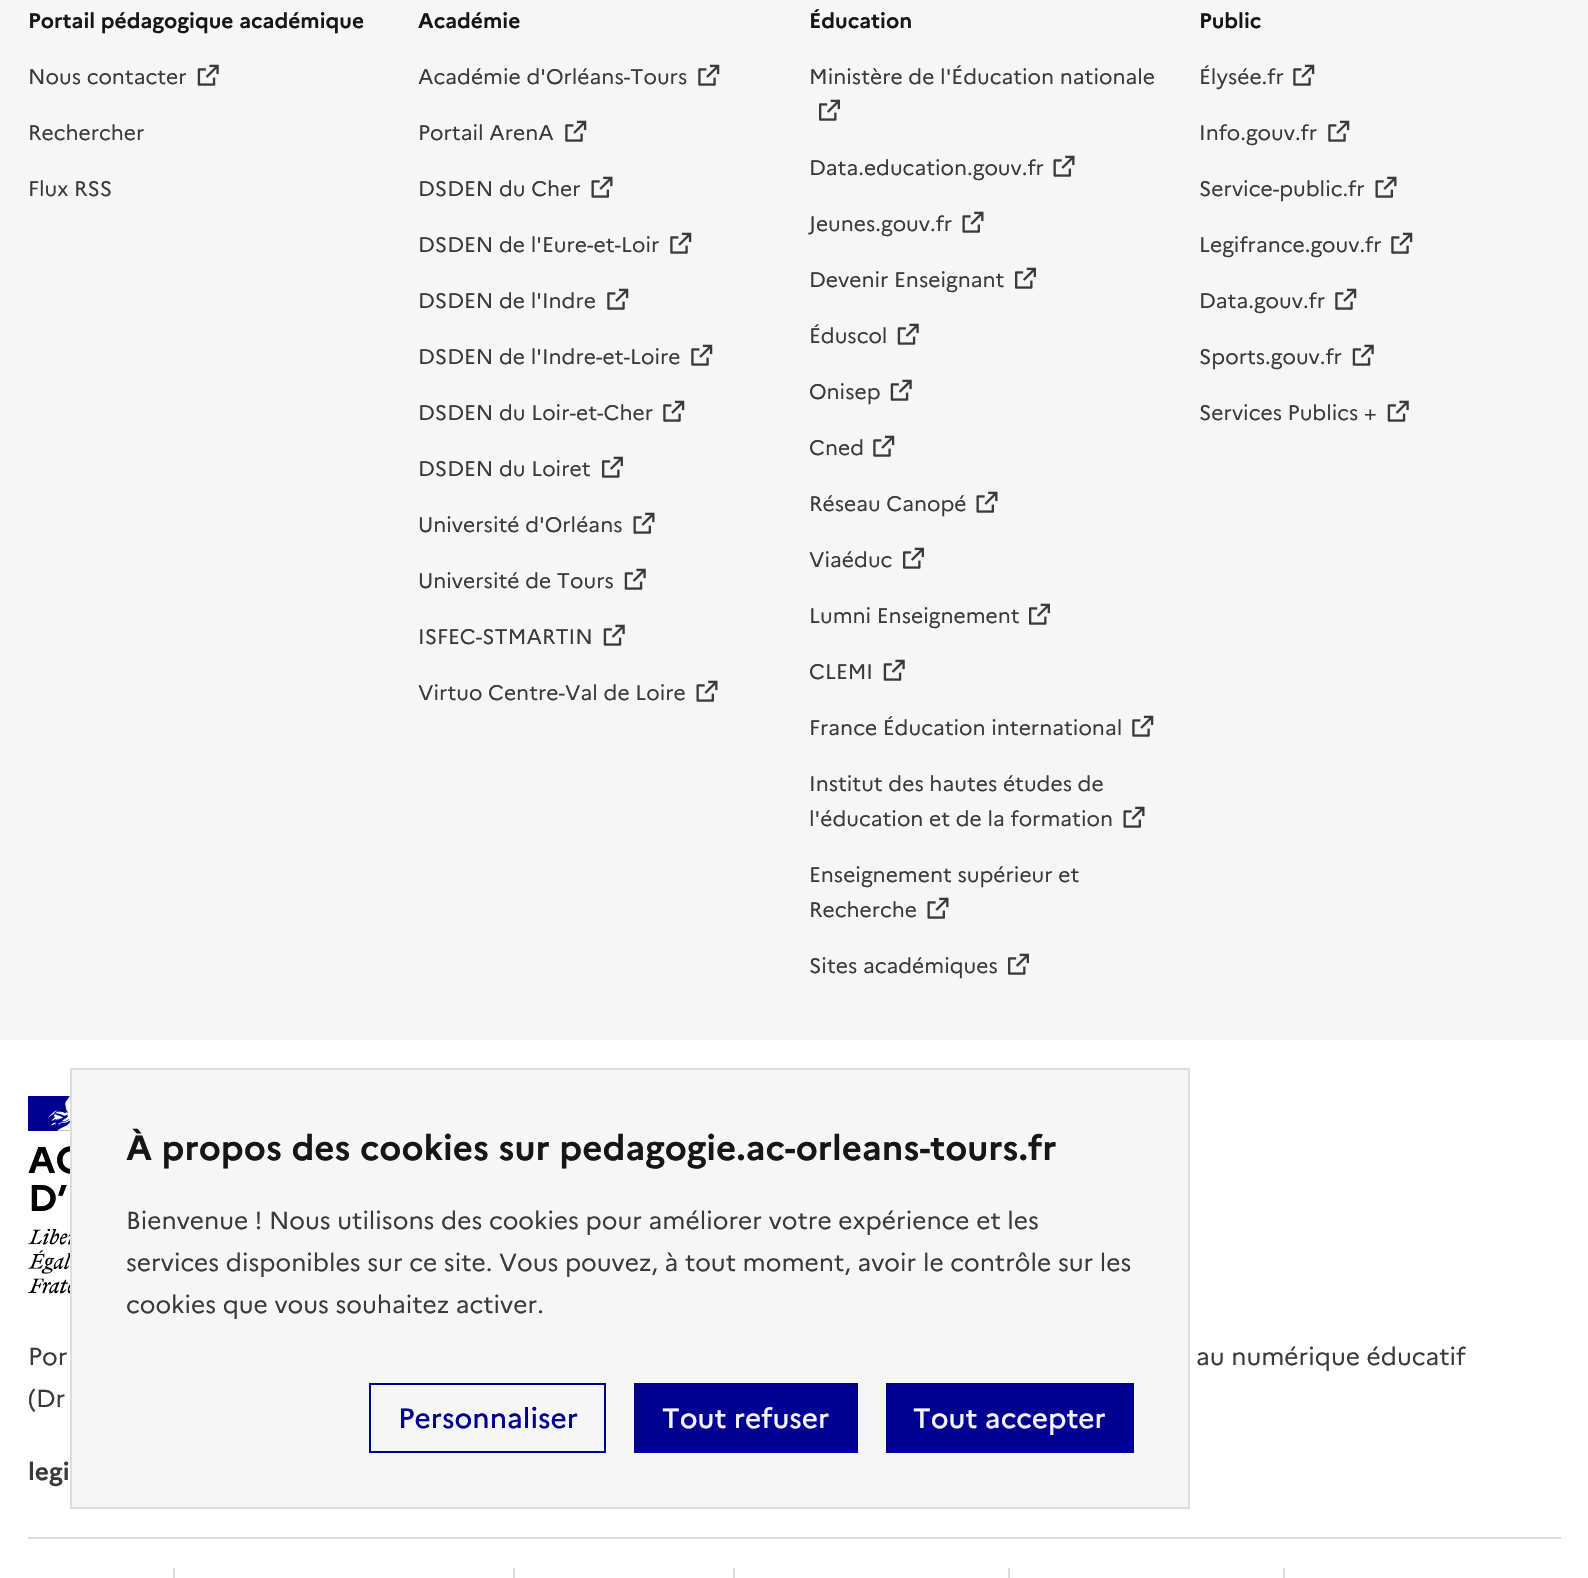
void draw(SkCanvas* canvas) {
    SkPaint paint;
    paint.setAntiAlias(true);
    auto face = [&](const char* family, int weight, float size, bool italic = false) {
        SkFontStyle style(weight, SkFontStyle::kNormal_Width,
            italic ? SkFontStyle::kItalic_Slant : SkFontStyle::kUpright_Slant);
        SkFont result(fontMgr->matchFamilyStyle(family, style), size);
        result.setSubpixel(true);
        return result;
    };
    auto write = [&](const char* s, float x, float y, const SkFont& font, SkColor color) {
        SkPaint ink(SkColor4f::FromColor(color));
        ink.setAntiAlias(true);
        canvas->drawString(s, x, y, font, ink);
    };
    auto block = [&](float x, float y, float w, float h, SkColor color) {
        SkPaint ink(SkColor4f::FromColor(color));
        ink.setAntiAlias(true);
        canvas->drawRect(SkRect::MakeXYWH(x, y, w, h), ink);
    };
    auto paste = [&](const char* path, float x, float y, float w, float h) {
        auto image = SkImages::DeferredFromEncodedData(SkData::MakeFromFileName(path));
        canvas->drawImageRect(image, SkRect::MakeXYWH(x, y, w, h), SkSamplingOptions());
    };
    canvas->clear(SK_ColorWHITE);
    block(0, 0, 1588, 1040, SkColorSetRGB(246, 246, 246));
    auto kFont1 = face("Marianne", 700, 21);
    write("Portail pédagogique académique", 28, 28, kFont1, SkColorSetRGB(22, 22, 22));
    auto kFont2 = face("Marianne", 400, 21);
    write("Nous contacter", 28, 84, kFont2, SkColorSetRGB(58, 58, 58));
    paste("pic1.png", 197, 64, 22, 22);
    write("Rechercher", 28, 140, kFont2, SkColorSetRGB(58, 58, 58));
    write("Flux RSS", 28, 196, kFont2, SkColorSetRGB(58, 58, 58));
    write("Académie", 418, 28, kFont1, SkColorSetRGB(22, 22, 22));
    write("Académie d'Orléans-Tours", 418, 84, kFont2, SkColorSetRGB(58, 58, 58));
    paste("pic2.png", 698, 64, 22, 22);
    write("Portail ArenA", 418, 140, kFont2, SkColorSetRGB(58, 58, 58));
    paste("pic2.png", 565, 120, 22, 22);
    write("DSDEN du Cher", 418, 196, kFont2, SkColorSetRGB(58, 58, 58));
    paste("pic3.png", 591, 176, 22, 22);
    write("DSDEN de l'Eure-et-Loir", 418, 252, kFont2, SkColorSetRGB(58, 58, 58));
    paste("pic2.png", 670, 232, 22, 22);
    write("DSDEN de l'Indre", 418, 308, kFont2, SkColorSetRGB(58, 58, 58));
    paste("pic2.png", 607, 288, 22, 22);
    write("DSDEN de l'Indre-et-Loire", 418, 364, kFont2, SkColorSetRGB(58, 58, 58));
    paste("pic2.png", 691, 344, 22, 22);
    write("DSDEN du Loir-et-Cher", 418, 420, kFont2, SkColorSetRGB(58, 58, 58));
    paste("pic2.png", 663, 400, 22, 22);
    write("DSDEN du Loiret", 418, 476, kFont2, SkColorSetRGB(58, 58, 58));
    paste("pic4.png", 602, 456, 21, 22);
    write("Université d'Orléans", 418, 532, kFont2, SkColorSetRGB(58, 58, 58));
    paste("pic3.png", 633, 512, 22, 22);
    write("Université de Tours", 418, 588, kFont2, SkColorSetRGB(58, 58, 58));
    paste("pic1.png", 624, 568, 22, 22);
    write("ISFEC-STMARTIN", 418, 644, kFont2, SkColorSetRGB(58, 58, 58));
    paste("pic1.png", 603, 624, 22, 22);
    write("Virtuo Centre-Val de Loire", 418, 700, kFont2, SkColorSetRGB(58, 58, 58));
    paste("pic3.png", 696, 680, 22, 22);
    write("Éducation", 809, 28, kFont1, SkColorSetRGB(22, 22, 22));
    write("Ministère de l'Éducation nationale", 809, 84, kFont2, SkColorSetRGB(58, 58, 58));
    paste("pic4.png", 819, 99, 21, 22);
    write("Data.education.gouv.fr", 809, 175, kFont2, SkColorSetRGB(58, 58, 58));
    paste("pic3.png", 1053, 155, 22, 22);
    write("Jeunes.gouv.fr", 809, 231, kFont2, SkColorSetRGB(58, 58, 58));
    paste("pic3.png", 962, 211, 22, 22);
    write("Devenir Enseignant", 809, 287, kFont2, SkColorSetRGB(58, 58, 58));
    paste("pic4.png", 1015, 267, 21, 22);
    write("Éduscol", 809, 343, kFont2, SkColorSetRGB(58, 58, 58));
    paste("pic1.png", 897, 323, 22, 22);
    write("Onisep", 809, 399, kFont2, SkColorSetRGB(58, 58, 58));
    paste("pic1.png", 890, 379, 22, 22);
    write("Cned", 809, 455, kFont2, SkColorSetRGB(58, 58, 58));
    paste("pic2.png", 873, 435, 22, 22);
    write("Réseau Canopé", 809, 511, kFont2, SkColorSetRGB(58, 58, 58));
    paste("pic3.png", 976, 491, 22, 22);
    write("Viaéduc", 809, 567, kFont2, SkColorSetRGB(58, 58, 58));
    paste("pic4.png", 903, 547, 21, 22);
    write("Lumni Enseignement", 809, 623, kFont2, SkColorSetRGB(58, 58, 58));
    paste("pic4.png", 1029, 603, 21, 22);
    write("CLEMI", 809, 679, kFont2, SkColorSetRGB(58, 58, 58));
    paste("pic1.png", 883, 659, 22, 22);
    write("France Éducation international", 809, 735, kFont2, SkColorSetRGB(58, 58, 58));
    paste("pic2.png", 1132, 715, 22, 22);
    write("Institut des hautes études de", 809, 791, kFont2, SkColorSetRGB(58, 58, 58));
    write("l'éducation et de la formation", 809, 826, kFont2, SkColorSetRGB(58, 58, 58));
    paste("pic3.png", 1123, 806, 22, 22);
    write("Enseignement supérieur et", 809, 882, kFont2, SkColorSetRGB(58, 58, 58));
    write("Recherche", 809, 917, kFont2, SkColorSetRGB(58, 58, 58));
    paste("pic3.png", 927, 897, 22, 22);
    write("Sites académiques", 809, 973, kFont2, SkColorSetRGB(58, 58, 58));
    paste("pic4.png", 1008, 953, 21, 22);
    write("Public", 1199, 28, kFont1, SkColorSetRGB(22, 22, 22));
    write("Élysée.fr", 1199, 84, kFont2, SkColorSetRGB(58, 58, 58));
    paste("pic2.png", 1293, 64, 22, 22);
    write("Info.gouv.fr", 1199, 140, kFont2, SkColorSetRGB(58, 58, 58));
    paste("pic2.png", 1328, 120, 22, 22);
    write("Service-public.fr", 1199, 196, kFont2, SkColorSetRGB(58, 58, 58));
    paste("pic3.png", 1375, 176, 22, 22);
    write("Legifrance.gouv.fr", 1199, 252, kFont2, SkColorSetRGB(58, 58, 58));
    paste("pic2.png", 1391, 232, 22, 22);
    write("Data.gouv.fr", 1199, 308, kFont2, SkColorSetRGB(58, 58, 58));
    paste("pic2.png", 1335, 288, 22, 22);
    write("Sports.gouv.fr", 1199, 364, kFont2, SkColorSetRGB(58, 58, 58));
    paste("pic1.png", 1352, 344, 22, 22);
    write("Services Publics +", 1199, 420, kFont2, SkColorSetRGB(58, 58, 58));
    paste("pic1.png", 1387, 400, 22, 22);
    block(28, 1096, 42, 35, SkColorSetRGB(0, 0, 145));
    paste("pic5.png", 47, 1096, 23, 35);
    auto kFont3 = face("Marianne", 700, 37);
    write("AC", 28, 1173, kFont3, SK_ColorBLACK);
    write("D’", 28, 1211, kFont3, SK_ColorBLACK);
    paste("pic6.png", 28, 1229, 42, 65);
    auto kFont4 = face("Marianne", 400, 24.5f);
    write("Por", 28, 1365, kFont4, SkColorSetRGB(58, 58, 58));
    write("au numérique éducatif", 1196, 1365, kFont4, SkColorSetRGB(58, 58, 58));
    write("(Dr", 28, 1407, kFont4, SkColorSetRGB(58, 58, 58));
    auto kFont5 = face("Marianne", 700, 24.5f);
    write("legi", 28, 1480, kFont5, SkColorSetRGB(58, 58, 58));
    block(28, 1537, 1533, 2, SkColorSetRGB(221, 221, 221));
    block(173, 1568, 2, 10, SkColorSetRGB(221, 221, 221));
    block(513, 1568, 2, 10, SkColorSetRGB(221, 221, 221));
    block(733, 1568, 2, 10, SkColorSetRGB(221, 221, 221));
    block(1008, 1568, 2, 10, SkColorSetRGB(221, 221, 221));
    block(1283, 1568, 2, 10, SkColorSetRGB(221, 221, 221));
    paint.setColor(SkColorSetRGB(246, 246, 246));
    canvas->drawRect(SkRect::MakeXYWH(71, 1069, 1118, 439), paint);
    paint.setStyle(SkPaint::kStroke_Style);
    paint.setStrokeWidth(2);
    paint.setColor(SkColorSetRGB(221, 221, 221));
    canvas->drawRect(SkRect::MakeXYWH(71, 1069, 1118, 439), paint);
    auto kFont6 = face("Marianne", 700, 35);
    write("À propos des cookies sur pedagogie.ac-orleans-tours.fr", 126, 1160, kFont6, SkColorSetRGB(22, 22, 22));
    write("Bienvenue ! Nous utilisons des cookies pour améliorer votre expérience et les", 126, 1229, kFont4, SkColorSetRGB(58, 58, 58));
    write("services disponibles sur ce site. Vous pouvez, à tout moment, avoir le contrôle sur les", 126, 1271, kFont4, SkColorSetRGB(58, 58, 58));
    write("cookies que vous souhaitez activer.", 126, 1313, kFont4, SkColorSetRGB(58, 58, 58));
    paint.setColor(SkColorSetRGB(0, 0, 145));
    canvas->drawRect(SkRect::MakeXYWH(370, 1384, 235, 68), paint);
    auto kFont7 = face("Marianne", 500, 28);
    write("Personnaliser", 398, 1428, kFont7, SkColorSetRGB(0, 0, 145));
    block(634, 1383, 224, 70, SkColorSetRGB(0, 0, 145));
    write("Tout refuser", 662, 1428, kFont7, SkColorSetRGB(245, 245, 254));
    block(886, 1383, 248, 70, SkColorSetRGB(0, 0, 145));
    write("Tout accepter", 913, 1428, kFont7, SkColorSetRGB(245, 245, 254));
}
